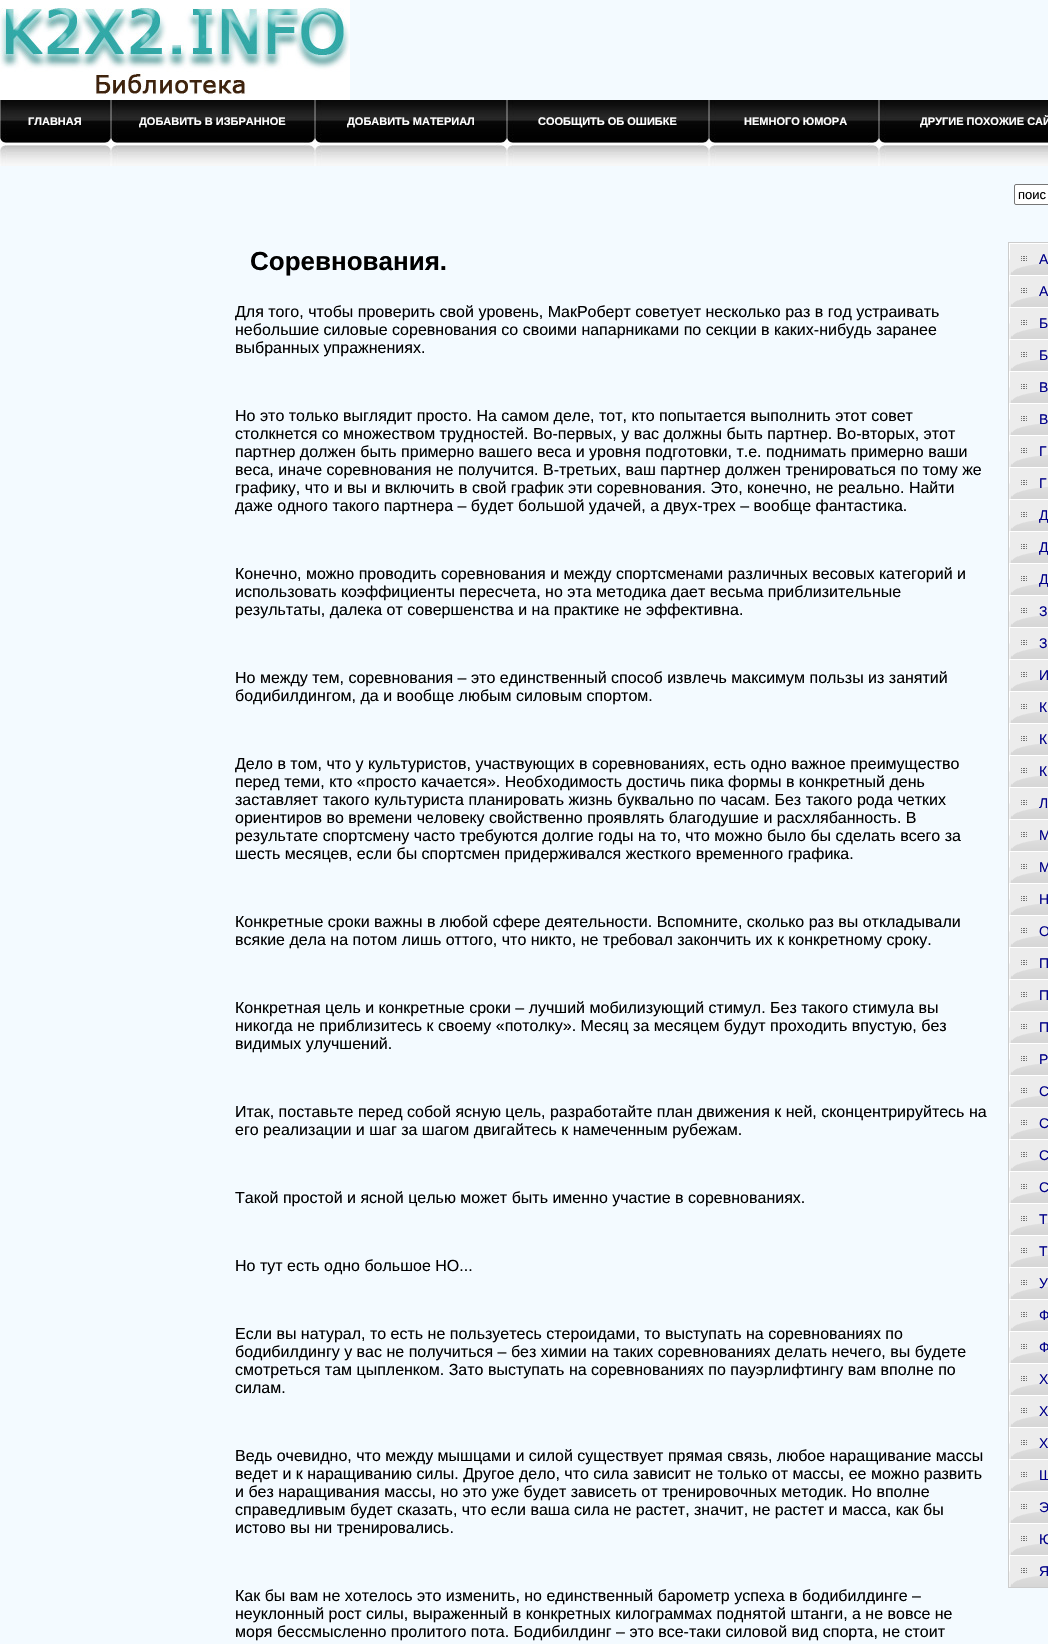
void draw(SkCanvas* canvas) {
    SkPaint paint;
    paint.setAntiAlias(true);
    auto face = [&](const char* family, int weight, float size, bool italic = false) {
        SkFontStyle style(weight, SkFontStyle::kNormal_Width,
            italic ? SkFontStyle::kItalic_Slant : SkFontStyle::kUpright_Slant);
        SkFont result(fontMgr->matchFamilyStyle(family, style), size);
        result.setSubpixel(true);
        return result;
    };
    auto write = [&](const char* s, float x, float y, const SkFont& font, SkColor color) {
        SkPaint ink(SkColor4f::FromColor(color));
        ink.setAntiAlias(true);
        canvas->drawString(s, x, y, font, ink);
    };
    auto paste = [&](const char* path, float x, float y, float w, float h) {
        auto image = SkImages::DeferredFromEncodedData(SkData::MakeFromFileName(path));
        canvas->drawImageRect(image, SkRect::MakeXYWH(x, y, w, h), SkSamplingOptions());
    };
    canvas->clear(SkColorSetRGB(243, 250, 255));
    paste("pic1.png", 0, 0, 350, 100);
    paste("pic2.png", 0, 100, 7, 66);
    paste("pic3.png", 7, 100, 104, 66);
    auto kFont1 = face("Liberation Sans", 700, 11);
    write("ГЛАВНАЯ", 28, 125, kFont1, SK_ColorWHITE);
    paste("pic2.png", 111, 100, 7, 66);
    paste("pic4.png", 118, 100, 197, 66);
    write("ДОБАВИТЬ В ИЗБРАННОЕ", 139, 125, kFont1, SK_ColorWHITE);
    paste("pic2.png", 315, 100, 7, 66);
    paste("pic5.png", 322, 100, 185, 66);
    write("ДОБАВИТЬ МАТЕРИАЛ", 347, 125, kFont1, SK_ColorWHITE);
    paste("pic2.png", 507, 100, 7, 66);
    paste("pic6.png", 514, 100, 195, 66);
    write("СООБЩИТЬ ОБ ОШИБКЕ", 538, 125, kFont1, SK_ColorWHITE);
    paste("pic2.png", 709, 100, 7, 66);
    paste("pic7.png", 716, 100, 163, 66);
    write("НЕМНОГО ЮМОРА", 744, 125, kFont1, SK_ColorWHITE);
    paste("pic2.png", 879, 100, 7, 66);
    paste("pic8.png", 886, 100, 162, 66);
    write("ДРУГИЕ ПОХОЖИЕ САЙ", 920, 125, kFont1, SK_ColorWHITE);
    auto kFont2 = face("Liberation Sans", 700, 26);
    write("Соревнования.", 250, 270, kFont2, SK_ColorBLACK);
    auto kFont3 = face("Liberation Sans", 400, 16);
    write("Для того, чтобы проверить свой уровень, МакРоберт советует несколько раз в год устраивать", 235, 317, kFont3, SK_ColorBLACK);
    write("небольшие силовые соревнования со своими напарниками по секции в каких-нибудь заранее", 235, 335, kFont3, SK_ColorBLACK);
    write("выбранных упражнениях.", 235, 353, kFont3, SK_ColorBLACK);
    write("Но это только выглядит просто. На самом деле, тот, кто попытается выполнить этот совет", 235, 421, kFont3, SK_ColorBLACK);
    write("столкнется со множеством трудностей. Во-первых, у вас должны быть партнер. Во-вторых, этот", 235, 439, kFont3, SK_ColorBLACK);
    write("партнер должен быть примерно вашего веса и уровня подготовки, т.е. поднимать примерно ваши", 235, 457, kFont3, SK_ColorBLACK);
    write("веса, иначе соревнования не получится. В-третьих, ваш партнер должен тренироваться по тому же", 235, 475, kFont3, SK_ColorBLACK);
    write("графику, что и вы и включить в свой график эти соревнования. Это, конечно, не реально. Найти", 235, 493, kFont3, SK_ColorBLACK);
    write("даже одного такого партнера – будет большой удачей, а двух-трех – вообще фантастика.", 235, 511, kFont3, SK_ColorBLACK);
    write("Конечно, можно проводить соревнования и между спортсменами различных весовых категорий и", 235, 579, kFont3, SK_ColorBLACK);
    write("использовать коэффициенты пересчета, но эта методика дает весьма приблизительные", 235, 597, kFont3, SK_ColorBLACK);
    write("результаты, далека от совершенства и на практике не эффективна.", 235, 615, kFont3, SK_ColorBLACK);
    write("Но между тем, соревнования – это единственный способ извлечь максимум пользы из занятий", 235, 683, kFont3, SK_ColorBLACK);
    write("бодибилдингом, да и вообще любым силовым спортом.", 235, 701, kFont3, SK_ColorBLACK);
    write("Дело в том, что у культуристов, участвующих в соревнованиях, есть одно важное преимущество", 235, 769, kFont3, SK_ColorBLACK);
    write("перед теми, кто «просто качается». Необходимость достичь пика формы в конкретный день", 235, 787, kFont3, SK_ColorBLACK);
    write("заставляет такого культуриста планировать жизнь буквально по часам. Без такого рода четких", 235, 805, kFont3, SK_ColorBLACK);
    write("ориентиров во времени человеку свойственно проявлять благодушие и расхлябанность. В", 235, 823, kFont3, SK_ColorBLACK);
    write("результате спортсмену часто требуются долгие годы на то, что можно было бы сделать всего за", 235, 841, kFont3, SK_ColorBLACK);
    write("шесть месяцев, если бы спортсмен придерживался жесткого временного графика.", 235, 859, kFont3, SK_ColorBLACK);
    write("Конкретные сроки важны в любой сфере деятельности. Вспомните, сколько раз вы откладывали", 235, 927, kFont3, SK_ColorBLACK);
    write("всякие дела на потом лишь оттого, что никто, не требовал закончить их к конкретному сроку.", 235, 945, kFont3, SK_ColorBLACK);
    write("Конкретная цель и конкретные сроки – лучший мобилизующий стимул. Без такого стимула вы", 235, 1013, kFont3, SK_ColorBLACK);
    write("никогда не приблизитесь к своему «потолку». Месяц за месяцем будут проходить впустую, без", 235, 1031, kFont3, SK_ColorBLACK);
    write("видимых улучшений.", 235, 1049, kFont3, SK_ColorBLACK);
    write("Итак, поставьте перед собой ясную цель, разработайте план движения к ней, сконцентрируйтесь на", 235, 1117, kFont3, SK_ColorBLACK);
    write("его реализации и шаг за шагом двигайтесь к намеченным рубежам.", 235, 1135, kFont3, SK_ColorBLACK);
    write("Такой простой и ясной целью может быть именно участие в соревнованиях.", 235, 1203, kFont3, SK_ColorBLACK);
    write("Но тут есть одно большое НО...", 235, 1271, kFont3, SK_ColorBLACK);
    write("Если вы натурал, то есть не пользуетесь стероидами, то выступать на соревнованиях по", 235, 1339, kFont3, SK_ColorBLACK);
    write("бодибилдингу у вас не получиться – без химии на таких соревнованиях делать нечего, вы будете", 235, 1357, kFont3, SK_ColorBLACK);
    write("смотреться там цыпленком. Зато выступать на соревнованиях по пауэрлифтингу вам вполне по", 235, 1375, kFont3, SK_ColorBLACK);
    write("силам.", 235, 1393, kFont3, SK_ColorBLACK);
    write("Ведь очевидно, что между мышцами и силой существует прямая связь, любое наращивание массы", 235, 1461, kFont3, SK_ColorBLACK);
    write("ведет и к наращиванию силы. Другое дело, что сила зависит не только от массы, ее можно развить", 235, 1479, kFont3, SK_ColorBLACK);
    write("и без наращивания массы, но это уже будет зависеть от тренировочных методик. Но вполне", 235, 1497, kFont3, SK_ColorBLACK);
    write("справедливым будет сказать, что если ваша сила не растет, значит, не растет и масса, как бы", 235, 1515, kFont3, SK_ColorBLACK);
    write("истово вы ни тренировались.", 235, 1533, kFont3, SK_ColorBLACK);
    write("Как бы вам не хотелось это изменить, но единственный барометр успеха в бодибилдинге –", 235, 1601, kFont3, SK_ColorBLACK);
    write("неуклонный рост силы, выраженный в конкретных килограммах поднятой штанги, а не вовсе не", 235, 1619, kFont3, SK_ColorBLACK);
    write("моря бессмысленно пролитого пота. Бодибилдинг – это все-таки силовой вид спорта, не стоит", 235, 1637, kFont3, SK_ColorBLACK);
    paint.setColor(SK_ColorWHITE);
    canvas->drawRoundRect(SkRect::MakeXYWH(1014.5f, 184.5f, 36, 20), 1.5f, 1.5f, paint);
    paint.setStyle(SkPaint::kStroke_Style);
    paint.setStrokeWidth(1);
    paint.setColor(SkColorSetRGB(118, 118, 118));
    canvas->drawRoundRect(SkRect::MakeXYWH(1014.5f, 184.5f, 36, 20), 1.5f, 1.5f, paint);
    auto kFont4 = face("Liberation Sans", 400, 13);
    write("поис", 1018, 199, kFont4, SK_ColorBLACK);
    paint.setColor(SkColorSetRGB(204, 204, 204));
    canvas->drawRect(SkRect::MakeXYWH(1008.5f, 242.5f, 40, 1345), paint);
    paste("pic9.png", 1009, 243, 39, 32);
    auto kFont5 = face("Liberation Sans", 400, 14);
    write("А", 1039, 264, kFont5, SkColorSetRGB(0, 0, 136));
    paste("pic9.png", 1009, 275, 39, 32);
    write("А", 1039, 296, kFont5, SkColorSetRGB(0, 0, 136));
    paste("pic9.png", 1009, 307, 39, 32);
    write("Б", 1039, 328, kFont5, SkColorSetRGB(0, 0, 136));
    paste("pic9.png", 1009, 339, 39, 32);
    write("Б", 1039, 360, kFont5, SkColorSetRGB(0, 0, 136));
    paste("pic9.png", 1009, 371, 39, 32);
    write("В", 1039, 392, kFont5, SkColorSetRGB(0, 0, 136));
    paste("pic9.png", 1009, 403, 39, 32);
    write("В", 1039, 424, kFont5, SkColorSetRGB(0, 0, 136));
    paste("pic9.png", 1009, 435, 39, 32);
    write("Г", 1039, 456, kFont5, SkColorSetRGB(0, 0, 136));
    paste("pic9.png", 1009, 467, 39, 32);
    write("Г", 1039, 488, kFont5, SkColorSetRGB(0, 0, 136));
    paste("pic9.png", 1009, 499, 39, 32);
    write("Д", 1039, 520, kFont5, SkColorSetRGB(0, 0, 136));
    paste("pic9.png", 1009, 531, 39, 32);
    write("Д", 1039, 552, kFont5, SkColorSetRGB(0, 0, 136));
    paste("pic9.png", 1009, 563, 39, 32);
    write("Д", 1039, 584, kFont5, SkColorSetRGB(0, 0, 136));
    paste("pic9.png", 1009, 595, 39, 32);
    write("З", 1039, 616, kFont5, SkColorSetRGB(0, 0, 136));
    paste("pic9.png", 1009, 627, 39, 32);
    write("З", 1039, 648, kFont5, SkColorSetRGB(0, 0, 136));
    paste("pic9.png", 1009, 659, 39, 32);
    write("И", 1039, 680, kFont5, SkColorSetRGB(0, 0, 136));
    paste("pic9.png", 1009, 691, 39, 32);
    write("К", 1039, 712, kFont5, SkColorSetRGB(0, 0, 136));
    paste("pic9.png", 1009, 723, 39, 32);
    write("К", 1039, 744, kFont5, SkColorSetRGB(0, 0, 136));
    paste("pic9.png", 1009, 755, 39, 32);
    write("К", 1039, 776, kFont5, SkColorSetRGB(0, 0, 136));
    paste("pic9.png", 1009, 787, 39, 32);
    write("Л", 1039, 808, kFont5, SkColorSetRGB(0, 0, 136));
    paste("pic9.png", 1009, 819, 39, 32);
    write("М", 1039, 840, kFont5, SkColorSetRGB(0, 0, 136));
    paste("pic9.png", 1009, 851, 39, 32);
    write("М", 1039, 872, kFont5, SkColorSetRGB(0, 0, 136));
    paste("pic9.png", 1009, 883, 39, 32);
    write("Н", 1039, 904, kFont5, SkColorSetRGB(0, 0, 136));
    paste("pic9.png", 1009, 915, 39, 32);
    write("О", 1039, 936, kFont5, SkColorSetRGB(0, 0, 136));
    paste("pic9.png", 1009, 947, 39, 32);
    write("П", 1039, 968, kFont5, SkColorSetRGB(0, 0, 136));
    paste("pic9.png", 1009, 979, 39, 32);
    write("П", 1039, 1000, kFont5, SkColorSetRGB(0, 0, 136));
    paste("pic9.png", 1009, 1011, 39, 32);
    write("П", 1039, 1032, kFont5, SkColorSetRGB(0, 0, 136));
    paste("pic9.png", 1009, 1043, 39, 32);
    write("Р", 1039, 1064, kFont5, SkColorSetRGB(0, 0, 136));
    paste("pic9.png", 1009, 1075, 39, 32);
    write("С", 1039, 1096, kFont5, SkColorSetRGB(0, 0, 136));
    paste("pic9.png", 1009, 1107, 39, 32);
    write("С", 1039, 1128, kFont5, SkColorSetRGB(0, 0, 136));
    paste("pic9.png", 1009, 1139, 39, 32);
    write("С", 1039, 1160, kFont5, SkColorSetRGB(0, 0, 136));
    paste("pic9.png", 1009, 1171, 39, 32);
    write("С", 1039, 1192, kFont5, SkColorSetRGB(0, 0, 136));
    paste("pic9.png", 1009, 1203, 39, 32);
    write("Т", 1039, 1224, kFont5, SkColorSetRGB(0, 0, 136));
    paste("pic9.png", 1009, 1235, 39, 32);
    write("Т", 1039, 1256, kFont5, SkColorSetRGB(0, 0, 136));
    paste("pic9.png", 1009, 1267, 39, 32);
    write("У", 1039, 1288, kFont5, SkColorSetRGB(0, 0, 136));
    paste("pic9.png", 1009, 1299, 39, 32);
    write("Ф", 1039, 1320, kFont5, SkColorSetRGB(0, 0, 136));
    paste("pic9.png", 1009, 1331, 39, 32);
    write("Ф", 1039, 1352, kFont5, SkColorSetRGB(0, 0, 136));
    paste("pic9.png", 1009, 1363, 39, 32);
    write("Х", 1039, 1384, kFont5, SkColorSetRGB(0, 0, 136));
    paste("pic9.png", 1009, 1395, 39, 32);
    write("Х", 1039, 1416, kFont5, SkColorSetRGB(0, 0, 136));
    paste("pic9.png", 1009, 1427, 39, 32);
    write("Х", 1039, 1448, kFont5, SkColorSetRGB(0, 0, 136));
    paste("pic9.png", 1009, 1459, 39, 32);
    write("Ш", 1039, 1480, kFont5, SkColorSetRGB(0, 0, 136));
    paste("pic9.png", 1009, 1491, 39, 32);
    write("Э", 1039, 1512, kFont5, SkColorSetRGB(0, 0, 136));
    paste("pic9.png", 1009, 1523, 39, 32);
    write("Ю", 1039, 1544, kFont5, SkColorSetRGB(0, 0, 136));
    paste("pic9.png", 1009, 1555, 39, 32);
    write("Я", 1039, 1576, kFont5, SkColorSetRGB(0, 0, 136));
}
